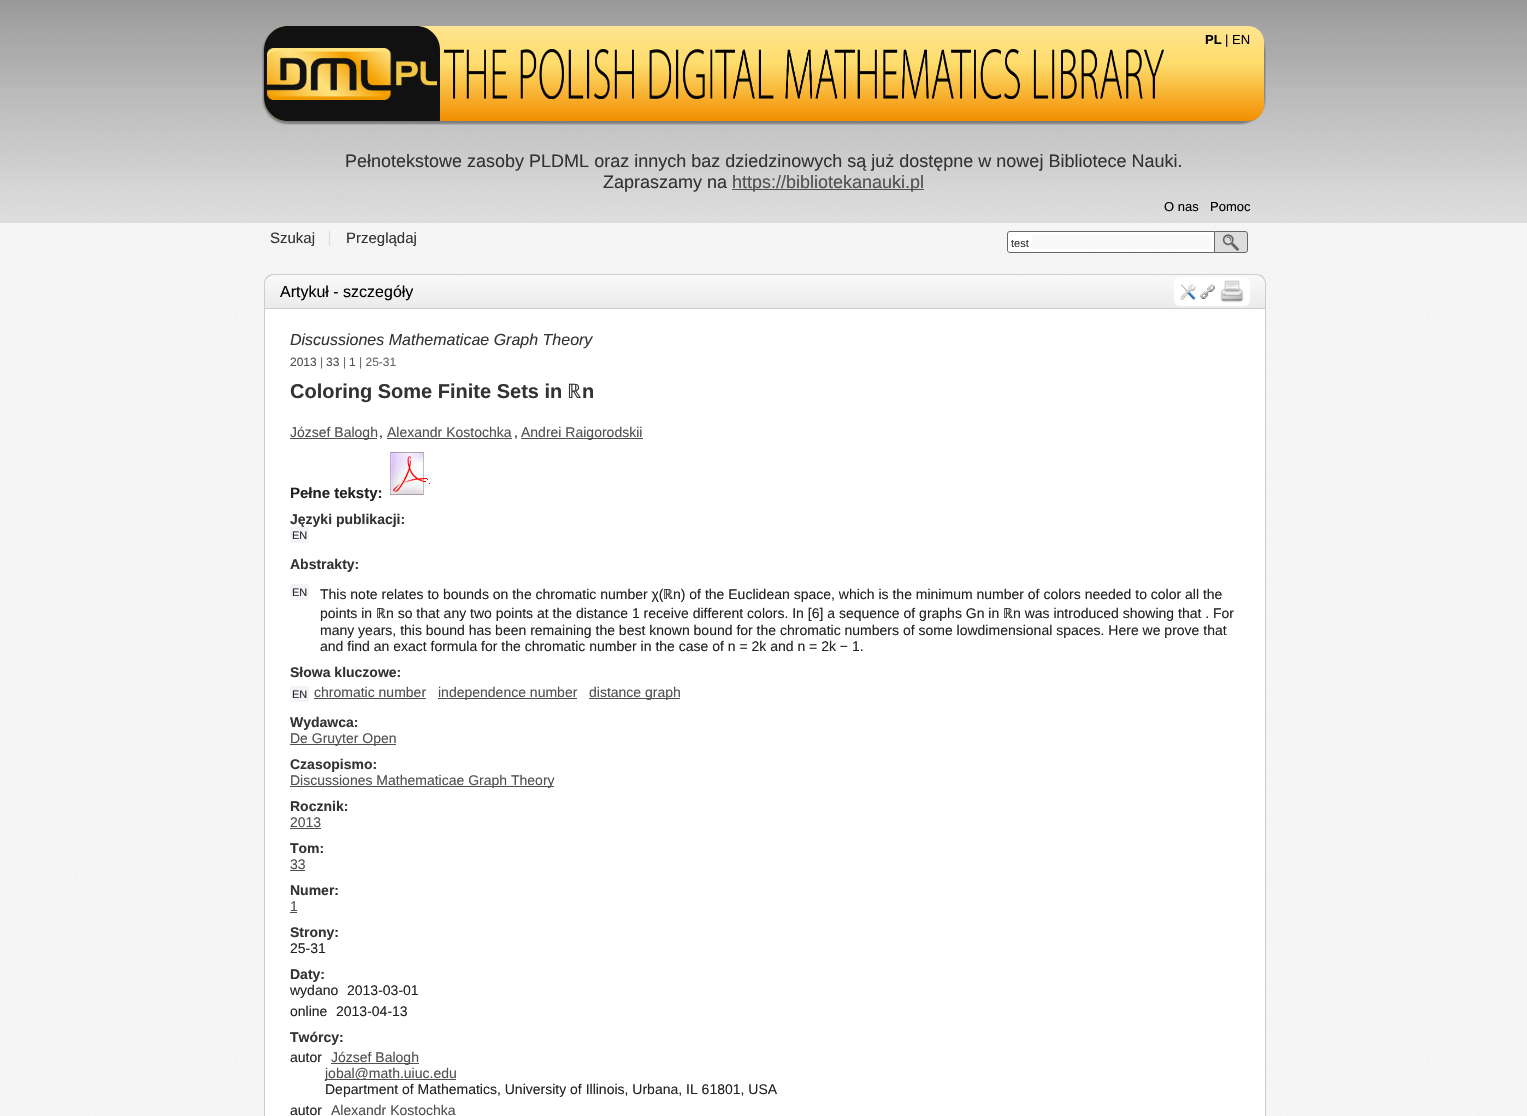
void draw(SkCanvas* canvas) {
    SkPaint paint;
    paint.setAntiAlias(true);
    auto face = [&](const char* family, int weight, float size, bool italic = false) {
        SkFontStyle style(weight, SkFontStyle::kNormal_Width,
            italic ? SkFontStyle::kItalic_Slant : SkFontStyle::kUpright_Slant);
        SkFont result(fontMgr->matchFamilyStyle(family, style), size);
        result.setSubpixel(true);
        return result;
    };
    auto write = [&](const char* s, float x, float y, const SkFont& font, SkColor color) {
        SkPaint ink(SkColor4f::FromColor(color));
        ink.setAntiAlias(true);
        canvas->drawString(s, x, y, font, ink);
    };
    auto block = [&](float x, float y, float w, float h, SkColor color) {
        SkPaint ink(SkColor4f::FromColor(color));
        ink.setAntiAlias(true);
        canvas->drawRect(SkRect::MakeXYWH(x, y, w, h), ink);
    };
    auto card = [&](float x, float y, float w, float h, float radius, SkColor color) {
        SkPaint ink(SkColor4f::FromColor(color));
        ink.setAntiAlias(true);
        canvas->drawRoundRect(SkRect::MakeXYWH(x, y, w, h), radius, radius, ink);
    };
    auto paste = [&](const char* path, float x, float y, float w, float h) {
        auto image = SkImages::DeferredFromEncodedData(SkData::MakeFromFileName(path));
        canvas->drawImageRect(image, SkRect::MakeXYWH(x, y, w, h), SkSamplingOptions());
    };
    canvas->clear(SK_ColorWHITE);
    paste("pic1.png", 0, 0, 1527, 1116);
    paint.setColor(SkColorSetARGB(128, 50, 50, 50));
    paint.setMaskFilter(SkMaskFilter::MakeBlur(kNormal_SkBlurStyle, 1));
    canvas->drawRoundRect(SkRect::MakeXYWH(263, 27, 1002, 97), 25, 25, paint);
    paint.setMaskFilter(nullptr);
    canvas->save();
    canvas->clipPath(SkPathBuilder().moveTo(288, 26).lineTo(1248, 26).cubicTo(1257, 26, 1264, 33, 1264, 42).lineTo(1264, 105).cubicTo(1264, 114, 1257, 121, 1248, 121).lineTo(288, 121).cubicTo(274.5f, 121, 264, 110.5f, 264, 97).lineTo(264, 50).cubicTo(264, 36.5f, 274.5f, 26, 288, 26).close().detach(), true);
    paint.setMaskFilter(SkMaskFilter::MakeBlur(kNormal_SkBlurStyle, 1));
    canvas->drawRoundRect(SkRect::MakeXYWH(263, 27, 1002, 97), 25, 25, paint);
    paint.setMaskFilter(nullptr);
    canvas->restore();
    {
        const SkColor colors[] = {SkColorSetRGB(255, 229, 145), SkColorSetRGB(254, 220, 108), SkColorSetRGB(242, 142, 0)};
        const float stops[] = {0, 0.4f, 1};
        const SkPoint ends[] = {{764, 26}, {764, 121}};
        paint.setShader(SkGradientShader::MakeLinear(ends, colors, stops, 3, SkTileMode::kClamp));
        paint.setAlpha(255);
    }
    canvas->drawPath(SkPathBuilder().moveTo(288, 26).lineTo(1248, 26).cubicTo(1257, 26, 1264, 33, 1264, 42).lineTo(1264, 105).cubicTo(1264, 114, 1257, 121, 1248, 121).lineTo(288, 121).cubicTo(274.5f, 121, 264, 110.5f, 264, 97).lineTo(264, 50).cubicTo(264, 36.5f, 274.5f, 26, 288, 26).close().detach(), paint);
    paint.setShader(nullptr);
    paint.setColor(SkColorSetRGB(17, 17, 17));
    canvas->drawPath(SkPathBuilder().moveTo(288, 26).lineTo(416, 26).cubicTo(429.5f, 26, 440, 36.5f, 440, 50).lineTo(440, 121).lineTo(288, 121).cubicTo(274.5f, 121, 264, 110.5f, 264, 97).lineTo(264, 50).cubicTo(264, 36.5f, 274.5f, 26, 288, 26).close().detach(), paint);
    paste("pic2.png", 267, 48, 170, 52);
    auto kFont1 = face("Liberation Sans", 700, 13);
    write("PL", 1205, 44, kFont1, SK_ColorBLACK);
    auto kFont2 = face("Liberation Sans", 400, 13);
    write("| EN", 1225, 44, kFont2, SK_ColorBLACK);
    paste("pic3.png", 444, 49, 720, 50);
    auto kFont3 = face("Liberation Sans", 400, 18);
    write("Pełnotekstowe zasoby PLDML oraz innych baz dziedzinowych są już dostępne w nowej Bibliotece Nauki.", 345, 167, kFont3, SkColorSetRGB(51, 51, 51));
    write("Zapraszamy na", 603, 188, kFont3, SkColorSetRGB(51, 51, 51));
    block(732, 189, 192, 1, SkColorSetRGB(81, 80, 80));
    write("https://bibliotekanauki.pl", 732, 188, kFont3, SkColorSetRGB(81, 80, 80));
    paste("pic4.png", 0, 223, 1527, 31);
    write("O nas", 1164, 211, kFont2, SK_ColorBLACK);
    write("Pomoc", 1210, 211, kFont2, SK_ColorBLACK);
    auto kFont4 = face("Liberation Sans", 400, 15);
    write("Szukaj", 270, 243, kFont4, SkColorSetRGB(51, 51, 51));
    paint.setColor(SkColorSetARGB(51, 100, 100, 100));
    paint.setMaskFilter(SkMaskFilter::MakeBlur(kNormal_SkBlurStyle, 0.5f));
    canvas->drawRect(SkRect::MakeXYWH(329, 231, 1, 15), paint);
    paint.setMaskFilter(nullptr);
    write("Przeglądaj", 346, 243, kFont4, SkColorSetRGB(51, 51, 51));
    paint.setColor(SK_ColorWHITE);
    canvas->drawPath(SkPathBuilder().moveTo(1010, 231.5f).lineTo(1215.5f, 231.5f).lineTo(1215.5f, 252.5f).lineTo(1010, 252.5f).cubicTo(1008.5f, 252.5f, 1007.5f, 251.5f, 1007.5f, 250).lineTo(1007.5f, 234).cubicTo(1007.5f, 232.5f, 1008.5f, 231.5f, 1010, 231.5f).close().detach(), paint);
    paint.setStyle(SkPaint::kStroke_Style);
    paint.setStrokeWidth(1);
    paint.setColor(SkColorSetRGB(102, 102, 102));
    canvas->drawPath(SkPathBuilder().moveTo(1010, 231.5f).lineTo(1215.5f, 231.5f).lineTo(1215.5f, 252.5f).lineTo(1010, 252.5f).cubicTo(1008.5f, 252.5f, 1007.5f, 251.5f, 1007.5f, 250).lineTo(1007.5f, 234).cubicTo(1007.5f, 232.5f, 1008.5f, 231.5f, 1010, 231.5f).close().detach(), paint);
    auto kFont5 = face("Liberation Sans", 400, 11);
    write("test", 1011, 247, kFont5, SkColorSetRGB(51, 51, 51));
    paint.setStyle(SkPaint::kFill_Style);
    paint.setColor(SkColorSetRGB(249, 249, 249));
    canvas->drawPath(SkPathBuilder().moveTo(1035, 235).lineTo(1212, 235).lineTo(1212, 249).lineTo(1035, 249).cubicTo(1033.5f, 249, 1032, 247.5f, 1032, 246).lineTo(1032, 238).cubicTo(1032, 236.5f, 1033.5f, 235, 1035, 235).close().detach(), paint);
    paint.setColor(SkColorSetRGB(221, 221, 221));
    canvas->drawPath(SkPathBuilder().moveTo(1214, 231).lineTo(1245, 231).cubicTo(1246.5f, 231, 1248, 232.5f, 1248, 234).lineTo(1248, 250).cubicTo(1248, 251.5f, 1246.5f, 253, 1245, 253).lineTo(1214, 253).close().detach(), paint);
    paste("pic5.png", 1222, 234, 17, 17);
    paint.setStyle(SkPaint::kStroke_Style);
    paint.setColor(SkColorSetRGB(102, 102, 102));
    canvas->drawPath(SkPathBuilder().moveTo(1214.5f, 231.5f).lineTo(1245, 231.5f).cubicTo(1246.5f, 231.5f, 1247.5f, 232.5f, 1247.5f, 234).lineTo(1247.5f, 250).cubicTo(1247.5f, 251.5f, 1246.5f, 252.5f, 1245, 252.5f).lineTo(1214.5f, 252.5f).close().detach(), paint);
    paint.setStyle(SkPaint::kFill_Style);
    paint.setColor(SkColorSetRGB(204, 204, 204));
    canvas->drawPath(SkPathBuilder(SkPathFillType::kEvenOdd).moveTo(274, 274).lineTo(1256, 274).cubicTo(1262, 274, 1266, 278, 1266, 284).lineTo(1266, 309).lineTo(264, 309).lineTo(264, 284).cubicTo(264, 278, 268, 274, 274, 274).close().moveTo(274, 275).lineTo(1256, 275).cubicTo(1261, 275, 1265, 279, 1265, 284).lineTo(1265, 309).lineTo(265, 309).lineTo(265, 284).cubicTo(265, 279, 269, 275, 274, 275).close().detach(), paint);
    {
        const SkColor colors[] = {SkColorSetRGB(249, 249, 249), SkColorSetRGB(235, 235, 235)};
        const float stops[] = {0, 1};
        const SkPoint ends[] = {{765, 275}, {765, 308}};
        paint.setShader(SkGradientShader::MakeLinear(ends, colors, stops, 2, SkTileMode::kClamp));
        paint.setAlpha(255);
    }
    canvas->drawPath(SkPathBuilder().moveTo(275, 275).lineTo(1255, 275).cubicTo(1260.5f, 275, 1265, 279.5f, 1265, 285).lineTo(1265, 308).lineTo(265, 308).lineTo(265, 285).cubicTo(265, 279.5f, 269.5f, 275, 275, 275).close().detach(), paint);
    block(265, 308, 1000, 1, SkColorSetRGB(204, 204, 204));
    auto kFont6 = face("Liberation Sans", 400, 16);
    write("Artykuł - szczegóły", 280, 297, kFont6, SK_ColorBLACK);
    card(1174, 277, 76, 29, 6, SK_ColorWHITE);
    paste("pic6.png", 1180, 284, 16, 16);
    paste("pic7.png", 1200, 284, 15, 15);
    paste("pic8.png", 1220, 280, 24, 23);
    block(265, 309, 1000, 807, SK_ColorWHITE);
    paint.setShader(nullptr);
    paint.setColor(SkColorSetRGB(204, 204, 204));
    canvas->drawPath(SkPathBuilder(SkPathFillType::kEvenOdd).moveTo(264, 309).lineTo(1266, 309).lineTo(1266, 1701).cubicTo(1266, 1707, 1262, 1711, 1256, 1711).lineTo(274, 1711).cubicTo(268, 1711, 264, 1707, 264, 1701).close().moveTo(265, 309).lineTo(1265, 309).lineTo(1265, 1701).cubicTo(1265, 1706, 1261, 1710, 1256, 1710).lineTo(274, 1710).cubicTo(269, 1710, 265, 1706, 265, 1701).close().detach(), paint);
    auto kFont7 = face("Liberation Sans", 400, 16, true);
    write("Discussiones Mathematicae Graph Theory", 290, 345, kFont7, SkColorSetRGB(51, 51, 51));
    auto kFont8 = face("Liberation Sans", 400, 12);
    write("2013", 290, 366, kFont8, SkColorSetRGB(81, 80, 80));
    write("|", 320, 366, kFont8, SkColorSetRGB(102, 102, 102));
    write("33", 326, 366, kFont8, SkColorSetRGB(81, 80, 80));
    write("|", 343, 366, kFont8, SkColorSetRGB(102, 102, 102));
    write("1", 349, 366, kFont8, SkColorSetRGB(81, 80, 80));
    write("| 25-31", 359, 366, kFont8, SkColorSetRGB(102, 102, 102));
    auto kFont9 = face("Liberation Sans", 700, 20);
    write("Coloring Some Finite Sets in", 290, 398, kFont9, SkColorSetRGB(51, 51, 51));
    auto kFont10 = face("Noto Sans", 700, 20);
    write("ℝ", 567, 398, kFont10, SkColorSetRGB(51, 51, 51));
    write("n", 582, 398, kFont9, SkColorSetRGB(51, 51, 51));
    block(290, 438, 87, 1, SkColorSetRGB(81, 80, 80));
    auto kFont11 = face("Liberation Sans", 400, 14);
    write("József Balogh", 290, 437, kFont11, SkColorSetRGB(81, 80, 80));
    write(",", 379, 437, kFont11, SkColorSetRGB(34, 34, 34));
    write("Alexandr Kostochka", 387, 437, kFont11, SkColorSetRGB(81, 80, 80));
    block(387, 438, 125, 1, SkColorSetRGB(81, 80, 80));
    write(",", 514, 437, kFont11, SkColorSetRGB(34, 34, 34));
    block(521, 438, 122, 1, SkColorSetRGB(81, 80, 80));
    write("Andrei Raigorodskii", 521, 437, kFont11, SkColorSetRGB(81, 80, 80));
    auto kFont12 = face("Liberation Sans", 700, 15);
    write("Pełne teksty:", 290, 498, kFont12, SkColorSetRGB(34, 34, 34));
    paste("pic9.png", 390, 452, 40, 43);
    auto kFont13 = face("Liberation Sans", 700, 14);
    write("Języki publikacji:", 290, 524, kFont13, SkColorSetRGB(51, 51, 51));
    card(290, 527, 19, 16, 2, SkColorSetRGB(243, 244, 247));
    write("EN", 292, 539, kFont5, SkColorSetRGB(34, 34, 34));
    write("Abstrakty:", 290, 569, kFont13, SkColorSetRGB(51, 51, 51));
    card(290, 584, 19, 16, 2, SkColorSetRGB(243, 244, 247));
    write("EN", 292, 596, kFont5, SkColorSetRGB(34, 34, 34));
    write("This note relates to bounds on the chromatic number χ(", 320, 599, kFont11, SkColorSetRGB(34, 34, 34));
    auto kFont14 = face("Noto Sans", 400, 14);
    write("ℝ", 663, 599, kFont14, SkColorSetRGB(34, 34, 34));
    write("n) of the Euclidean space, which is the minimum number of colors needed to color all the", 673, 599, kFont11, SkColorSetRGB(34, 34, 34));
    write("points in", 320, 618, kFont11, SkColorSetRGB(34, 34, 34));
    write("ℝ", 376, 618, kFont14, SkColorSetRGB(34, 34, 34));
    write("n so that any two points at the distance 1 receive different colors. In [6] a sequence of graphs Gn in", 386, 618, kFont11, SkColorSetRGB(34, 34, 34));
    write("ℝ", 1003, 618, kFont14, SkColorSetRGB(34, 34, 34));
    write("n was introduced showing that . For", 1013, 618, kFont11, SkColorSetRGB(34, 34, 34));
    write("many years, this bound has been remaining the best known bound for the chromatic numbers of some lowdimensional spaces. Here we prove that", 320, 635, kFont11, SkColorSetRGB(34, 34, 34));
    write("and find an exact formula for the chromatic number in the case of n = 2k and n = 2k − 1.", 320, 651, kFont11, SkColorSetRGB(34, 34, 34));
    write("Słowa kluczowe:", 290, 677, kFont13, SkColorSetRGB(51, 51, 51));
    card(290, 686, 19, 16, 2, SkColorSetRGB(243, 244, 247));
    write("EN", 292, 698, kFont5, SkColorSetRGB(34, 34, 34));
    write("chromatic number", 314, 697, kFont11, SkColorSetRGB(81, 80, 80));
    block(314, 698, 112, 1, SkColorSetRGB(81, 80, 80));
    block(438, 698, 139, 1, SkColorSetRGB(81, 80, 80));
    write("independence number", 438, 697, kFont11, SkColorSetRGB(81, 80, 80));
    block(589, 698, 91, 1, SkColorSetRGB(81, 80, 80));
    write("distance graph", 589, 697, kFont11, SkColorSetRGB(81, 80, 80));
    write("Wydawca:", 290, 727, kFont13, SkColorSetRGB(51, 51, 51));
    block(290, 744, 106, 1, SkColorSetRGB(81, 80, 80));
    write("De Gruyter Open", 290, 743, kFont11, SkColorSetRGB(81, 80, 80));
    write("Czasopismo:", 290, 769, kFont13, SkColorSetRGB(51, 51, 51));
    block(290, 786, 264, 1, SkColorSetRGB(81, 80, 80));
    write("Discussiones Mathematicae Graph Theory", 290, 785, kFont11, SkColorSetRGB(81, 80, 80));
    write("Rocznik:", 290, 811, kFont13, SkColorSetRGB(51, 51, 51));
    write("2013", 290, 827, kFont11, SkColorSetRGB(81, 80, 80));
    block(290, 828, 31, 1, SkColorSetRGB(81, 80, 80));
    write("Tom:", 290, 853, kFont13, SkColorSetRGB(51, 51, 51));
    write("33", 290, 869, kFont11, SkColorSetRGB(81, 80, 80));
    block(290, 870, 15, 1, SkColorSetRGB(81, 80, 80));
    write("Numer:", 290, 895, kFont13, SkColorSetRGB(51, 51, 51));
    write("1", 290, 911, kFont11, SkColorSetRGB(81, 80, 80));
    block(290, 912, 7, 1, SkColorSetRGB(81, 80, 80));
    write("Strony:", 290, 937, kFont13, SkColorSetRGB(51, 51, 51));
    write("25-31", 290, 953, kFont11, SkColorSetRGB(34, 34, 34));
    write("Daty:", 290, 979, kFont13, SkColorSetRGB(51, 51, 51));
    write("wydano", 290, 995, kFont11, SkColorSetRGB(34, 34, 34));
    write("2013-03-01", 347, 995, kFont11, SkColorSetRGB(34, 34, 34));
    write("online", 290, 1016, kFont11, SkColorSetRGB(34, 34, 34));
    write("2013-04-13", 336, 1016, kFont11, SkColorSetRGB(34, 34, 34));
    write("Twórcy:", 290, 1042, kFont13, SkColorSetRGB(51, 51, 51));
    write("autor", 290, 1062, kFont11, SkColorSetRGB(34, 34, 34));
    block(331, 1063, 88, 1, SkColorSetRGB(81, 80, 80));
    write("József Balogh", 331, 1062, kFont11, SkColorSetRGB(81, 80, 80));
    block(325, 1079, 131, 1, SkColorSetRGB(81, 80, 80));
    write("jobal@math.uiuc.edu", 325, 1078, kFont11, SkColorSetRGB(81, 80, 80));
    write("Department of Mathematics, University of Illinois, Urbana, IL 61801, USA", 325, 1094, kFont11, SkColorSetRGB(34, 34, 34));
    write("autor", 290, 1115, kFont11, SkColorSetRGB(34, 34, 34));
    write("Alexandr Kostochka", 331, 1115, kFont11, SkColorSetRGB(81, 80, 80));
}
